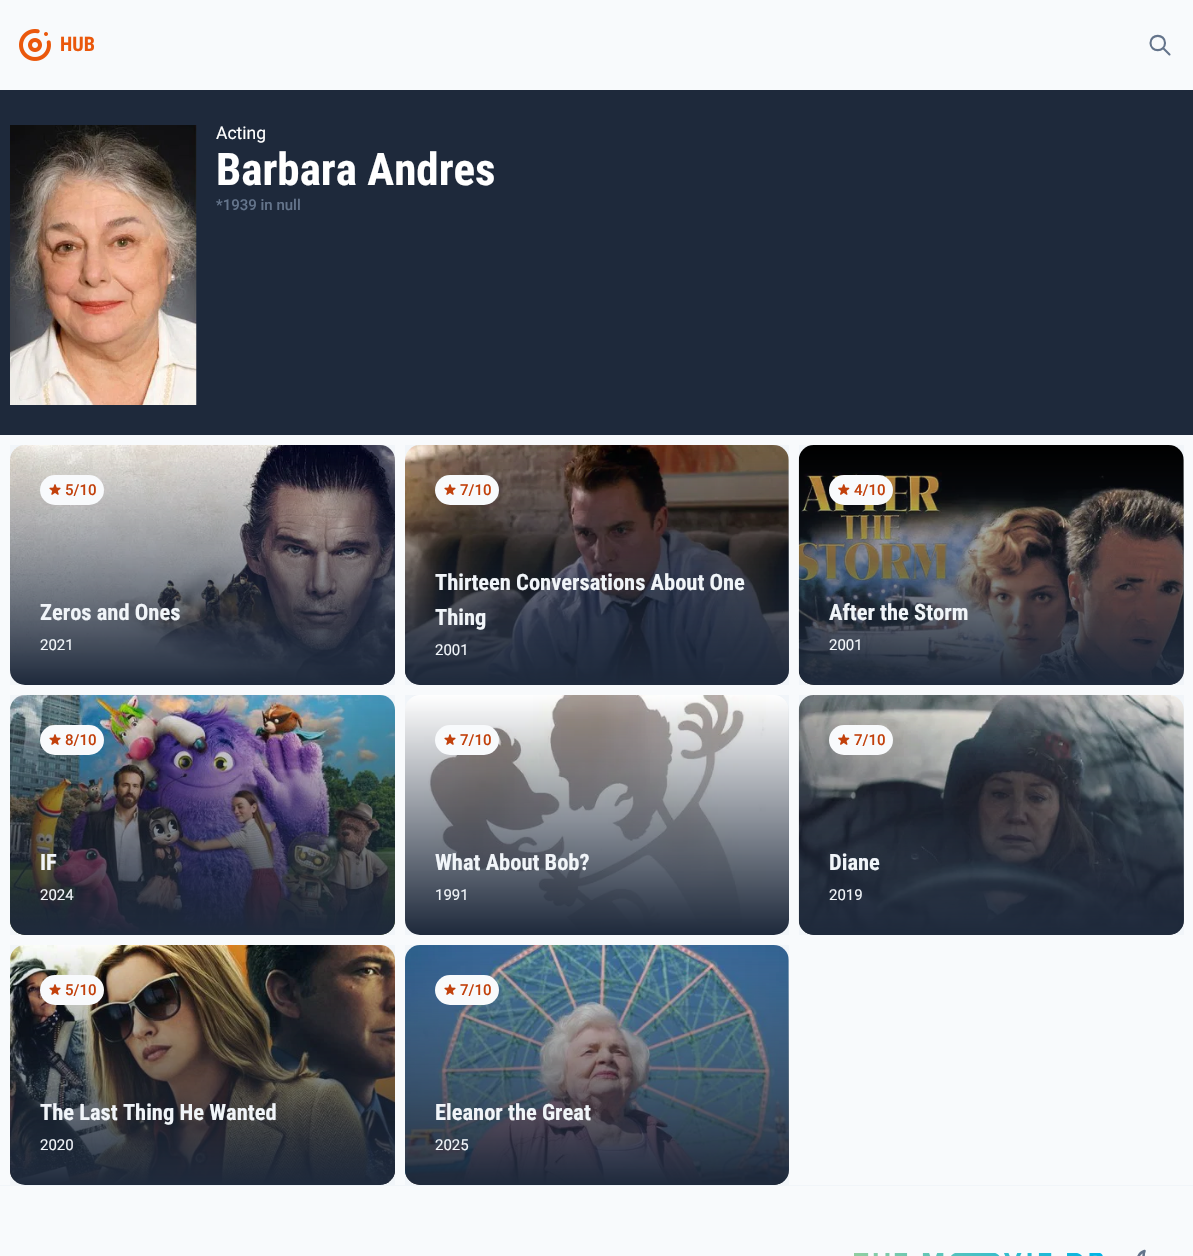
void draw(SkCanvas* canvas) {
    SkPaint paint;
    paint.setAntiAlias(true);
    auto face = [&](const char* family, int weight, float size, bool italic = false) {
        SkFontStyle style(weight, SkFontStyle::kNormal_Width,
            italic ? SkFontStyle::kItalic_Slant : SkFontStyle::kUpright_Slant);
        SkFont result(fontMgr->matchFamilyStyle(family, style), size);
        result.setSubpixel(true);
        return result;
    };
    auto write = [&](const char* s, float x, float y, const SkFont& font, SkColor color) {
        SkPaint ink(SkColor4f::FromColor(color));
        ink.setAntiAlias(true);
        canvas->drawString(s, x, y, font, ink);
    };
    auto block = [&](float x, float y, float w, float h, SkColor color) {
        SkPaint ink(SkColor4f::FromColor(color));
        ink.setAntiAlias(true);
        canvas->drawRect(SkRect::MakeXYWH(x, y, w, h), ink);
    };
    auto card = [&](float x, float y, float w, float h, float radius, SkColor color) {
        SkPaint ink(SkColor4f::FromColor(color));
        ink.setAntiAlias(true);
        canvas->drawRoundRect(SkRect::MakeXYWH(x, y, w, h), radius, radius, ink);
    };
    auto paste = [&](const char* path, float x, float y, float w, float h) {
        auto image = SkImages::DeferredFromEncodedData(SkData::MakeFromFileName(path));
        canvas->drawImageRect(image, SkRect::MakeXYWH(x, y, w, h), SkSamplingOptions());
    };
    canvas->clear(SkColorSetRGB(248, 250, 252));
    paste("pic1.png", 19, 29, 32, 32);
    auto kFont1 = face("Roboto Condensed", 700, 20);
    write("HUB", 60, 51, kFont1, SkColorSetRGB(234, 88, 12));
    paint.setStyle(SkPaint::kStroke_Style);
    paint.setStrokeWidth(2.1f);
    paint.setStrokeCap(SkPaint::kRound_Cap);
    paint.setStrokeJoin(SkPaint::kRound_Join);
    paint.setColor(SkColorSetRGB(100, 116, 139));
    canvas->drawPath(SkPathBuilder().moveTo(1169.5f, 54.5f).lineTo(1163, 48).moveTo(1165, 43).cubicTo(1165, 52.5f, 1150.5f, 52.5f, 1150.5f, 43).cubicTo(1150.5f, 33.5f, 1165, 33.5f, 1165, 43).close().detach(), paint);
    block(0, 90, 1193, 345, SkColorSetRGB(30, 41, 59));
    paste("pic2.png", 10, 125, 187, 280);
    auto kFont2 = face("Roboto", 400, 17.5f);
    write("Acting", 216, 139, kFont2, SK_ColorWHITE);
    auto kFont3 = face("Roboto Condensed", 700, 45);
    write("Barbara Andres", 216, 185, kFont3, SK_ColorWHITE);
    auto kFont4 = face("Roboto", 500, 15);
    write("*1939 in null", 216, 210, kFont4, SkColorSetRGB(100, 116, 139));
    block(10, 445, 385, 240, SkColorSetRGB(241, 245, 249));
    paste("pic3.png", 10, 445, 385, 240);
    paint.setStyle(SkPaint::kFill_Style);
    {
        const SkColor colors[] = {SkColorSetRGB(30, 41, 59), SkColorSetARGB(0, 30, 41, 59)};
        const float stops[] = {0, 1};
        const SkPoint ends[] = {{203, 685}, {203, 445}};
        paint.setShader(SkGradientShader::MakeLinear(ends, colors, stops, 2, SkTileMode::kClamp));
        paint.setAlpha(255);
    }
    canvas->drawRoundRect(SkRect::MakeXYWH(10, 445, 385, 240), 15, 15, paint);
    card(40, 475, 64, 30, 15, SkColorSetRGB(248, 250, 252));
    paste("pic4.png", 49, 484, 12, 11);
    write("5/10", 65, 495, kFont4, SkColorSetRGB(194, 65, 12));
    auto kFont5 = face("Roboto Condensed", 700, 22.5f);
    write("Zeros and Ones", 40, 620, kFont5, SkColorSetRGB(241, 245, 249));
    auto kFont6 = face("Roboto", 400, 15);
    write("2021", 40, 650, kFont6, SkColorSetRGB(241, 245, 249));
    block(405, 445, 384, 240, SkColorSetRGB(241, 245, 249));
    paste("pic5.png", 405, 445, 384, 240);
    {
        const SkColor colors[] = {SkColorSetRGB(30, 41, 59), SkColorSetARGB(0, 30, 41, 59)};
        const float stops[] = {0, 1};
        const SkPoint ends[] = {{597, 685}, {597, 445}};
        paint.setShader(SkGradientShader::MakeLinear(ends, colors, stops, 2, SkTileMode::kClamp));
        paint.setAlpha(255);
    }
    canvas->drawRoundRect(SkRect::MakeXYWH(405, 445, 384, 240), 15, 15, paint);
    card(435, 475, 64, 30, 15, SkColorSetRGB(248, 250, 252));
    paste("pic4.png", 444, 484, 12, 11);
    write("7/10", 460, 495, kFont4, SkColorSetRGB(194, 65, 12));
    write("Thirteen Conversations About One", 435, 590, kFont5, SkColorSetRGB(241, 245, 249));
    write("Thing", 435, 625, kFont5, SkColorSetRGB(241, 245, 249));
    write("2001", 435, 655, kFont6, SkColorSetRGB(241, 245, 249));
    block(799, 445, 385, 240, SkColorSetRGB(241, 245, 249));
    paste("pic6.png", 798, 445, 386, 240);
    {
        const SkColor colors[] = {SkColorSetRGB(30, 41, 59), SkColorSetARGB(0, 30, 41, 59)};
        const float stops[] = {0, 1};
        const SkPoint ends[] = {{991, 685}, {991, 445}};
        paint.setShader(SkGradientShader::MakeLinear(ends, colors, stops, 2, SkTileMode::kClamp));
        paint.setAlpha(255);
    }
    canvas->drawRoundRect(SkRect::MakeXYWH(799, 445, 385, 240), 15, 15, paint);
    card(829, 475, 64, 30, 15, SkColorSetRGB(248, 250, 252));
    paste("pic7.png", 838, 484, 12, 11);
    write("4/10", 854, 495, kFont4, SkColorSetRGB(194, 65, 12));
    write("After the Storm", 829, 620, kFont5, SkColorSetRGB(241, 245, 249));
    write("2001", 829, 650, kFont6, SkColorSetRGB(241, 245, 249));
    block(10, 695, 385, 240, SkColorSetRGB(241, 245, 249));
    paste("pic8.png", 10, 695, 385, 240);
    {
        const SkColor colors[] = {SkColorSetRGB(30, 41, 59), SkColorSetARGB(0, 30, 41, 59)};
        const float stops[] = {0, 1};
        const SkPoint ends[] = {{203, 935}, {203, 695}};
        paint.setShader(SkGradientShader::MakeLinear(ends, colors, stops, 2, SkTileMode::kClamp));
        paint.setAlpha(255);
    }
    canvas->drawRoundRect(SkRect::MakeXYWH(10, 695, 385, 240), 15, 15, paint);
    card(40, 725, 64, 30, 15, SkColorSetRGB(248, 250, 252));
    paste("pic4.png", 49, 734, 12, 11);
    write("8/10", 65, 745, kFont4, SkColorSetRGB(194, 65, 12));
    write("IF", 40, 870, kFont5, SkColorSetRGB(241, 245, 249));
    write("2024", 40, 900, kFont6, SkColorSetRGB(241, 245, 249));
    block(405, 695, 384, 240, SkColorSetRGB(241, 245, 249));
    paste("pic9.png", 405, 695, 384, 240);
    {
        const SkColor colors[] = {SkColorSetRGB(30, 41, 59), SkColorSetARGB(0, 30, 41, 59)};
        const float stops[] = {0, 1};
        const SkPoint ends[] = {{597, 935}, {597, 695}};
        paint.setShader(SkGradientShader::MakeLinear(ends, colors, stops, 2, SkTileMode::kClamp));
        paint.setAlpha(255);
    }
    canvas->drawRoundRect(SkRect::MakeXYWH(405, 695, 384, 240), 15, 15, paint);
    card(435, 725, 64, 30, 15, SkColorSetRGB(248, 250, 252));
    paste("pic4.png", 444, 734, 12, 11);
    write("7/10", 460, 745, kFont4, SkColorSetRGB(194, 65, 12));
    write("What About Bob?", 435, 870, kFont5, SkColorSetRGB(241, 245, 249));
    write("1991", 435, 900, kFont6, SkColorSetRGB(241, 245, 249));
    block(799, 695, 385, 240, SkColorSetRGB(241, 245, 249));
    paste("pic10.png", 798, 695, 386, 240);
    {
        const SkColor colors[] = {SkColorSetRGB(30, 41, 59), SkColorSetARGB(0, 30, 41, 59)};
        const float stops[] = {0, 1};
        const SkPoint ends[] = {{991, 935}, {991, 695}};
        paint.setShader(SkGradientShader::MakeLinear(ends, colors, stops, 2, SkTileMode::kClamp));
        paint.setAlpha(255);
    }
    canvas->drawRoundRect(SkRect::MakeXYWH(799, 695, 385, 240), 15, 15, paint);
    card(829, 725, 64, 30, 15, SkColorSetRGB(248, 250, 252));
    paste("pic7.png", 838, 734, 12, 11);
    write("7/10", 854, 745, kFont4, SkColorSetRGB(194, 65, 12));
    write("Diane", 829, 870, kFont5, SkColorSetRGB(241, 245, 249));
    write("2019", 829, 900, kFont6, SkColorSetRGB(241, 245, 249));
    block(10, 945, 385, 240, SkColorSetRGB(241, 245, 249));
    paste("pic11.png", 10, 945, 385, 240);
    {
        const SkColor colors[] = {SkColorSetRGB(30, 41, 59), SkColorSetARGB(0, 30, 41, 59)};
        const float stops[] = {0, 1};
        const SkPoint ends[] = {{203, 1185}, {203, 945}};
        paint.setShader(SkGradientShader::MakeLinear(ends, colors, stops, 2, SkTileMode::kClamp));
        paint.setAlpha(255);
    }
    canvas->drawRoundRect(SkRect::MakeXYWH(10, 945, 385, 240), 15, 15, paint);
    card(40, 975, 64, 30, 15, SkColorSetRGB(248, 250, 252));
    paste("pic4.png", 49, 984, 12, 11);
    write("5/10", 65, 995, kFont4, SkColorSetRGB(194, 65, 12));
    write("The Last Thing He Wanted", 40, 1120, kFont5, SkColorSetRGB(241, 245, 249));
    write("2020", 40, 1150, kFont6, SkColorSetRGB(241, 245, 249));
    block(405, 945, 384, 240, SkColorSetRGB(241, 245, 249));
    paste("pic12.png", 405, 945, 384, 240);
    {
        const SkColor colors[] = {SkColorSetRGB(30, 41, 59), SkColorSetARGB(0, 30, 41, 59)};
        const float stops[] = {0, 1};
        const SkPoint ends[] = {{597, 1185}, {597, 945}};
        paint.setShader(SkGradientShader::MakeLinear(ends, colors, stops, 2, SkTileMode::kClamp));
        paint.setAlpha(255);
    }
    canvas->drawRoundRect(SkRect::MakeXYWH(405, 945, 384, 240), 15, 15, paint);
    card(435, 975, 64, 30, 15, SkColorSetRGB(248, 250, 252));
    paste("pic4.png", 444, 984, 12, 11);
    write("7/10", 460, 995, kFont4, SkColorSetRGB(194, 65, 12));
    write("Eleanor the Great", 435, 1120, kFont5, SkColorSetRGB(241, 245, 249));
    write("2025", 435, 1150, kFont6, SkColorSetRGB(241, 245, 249));
    block(0, 1185, 1193, 1, SkColorSetRGB(241, 245, 249));
    paste("pic13.png", 854, 1253, 249, 3);
    paint.setStyle(SkPaint::kStroke_Style);
    paint.setStrokeWidth(2.5f);
    paint.setShader(nullptr);
    paint.setColor(SkColorSetRGB(100, 116, 139));
    canvas->drawPath(SkPathBuilder().moveTo(1159, 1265.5f).cubicTo(1150, 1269, 1141, 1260, 1144.5f, 1251).cubicTo(1141.5f, 1252, 1139, 1254.5f, 1138, 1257.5f).cubicTo(1133.5f, 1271.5f, 1154, 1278.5f, 1159, 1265.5f).close().detach(), paint);
}
